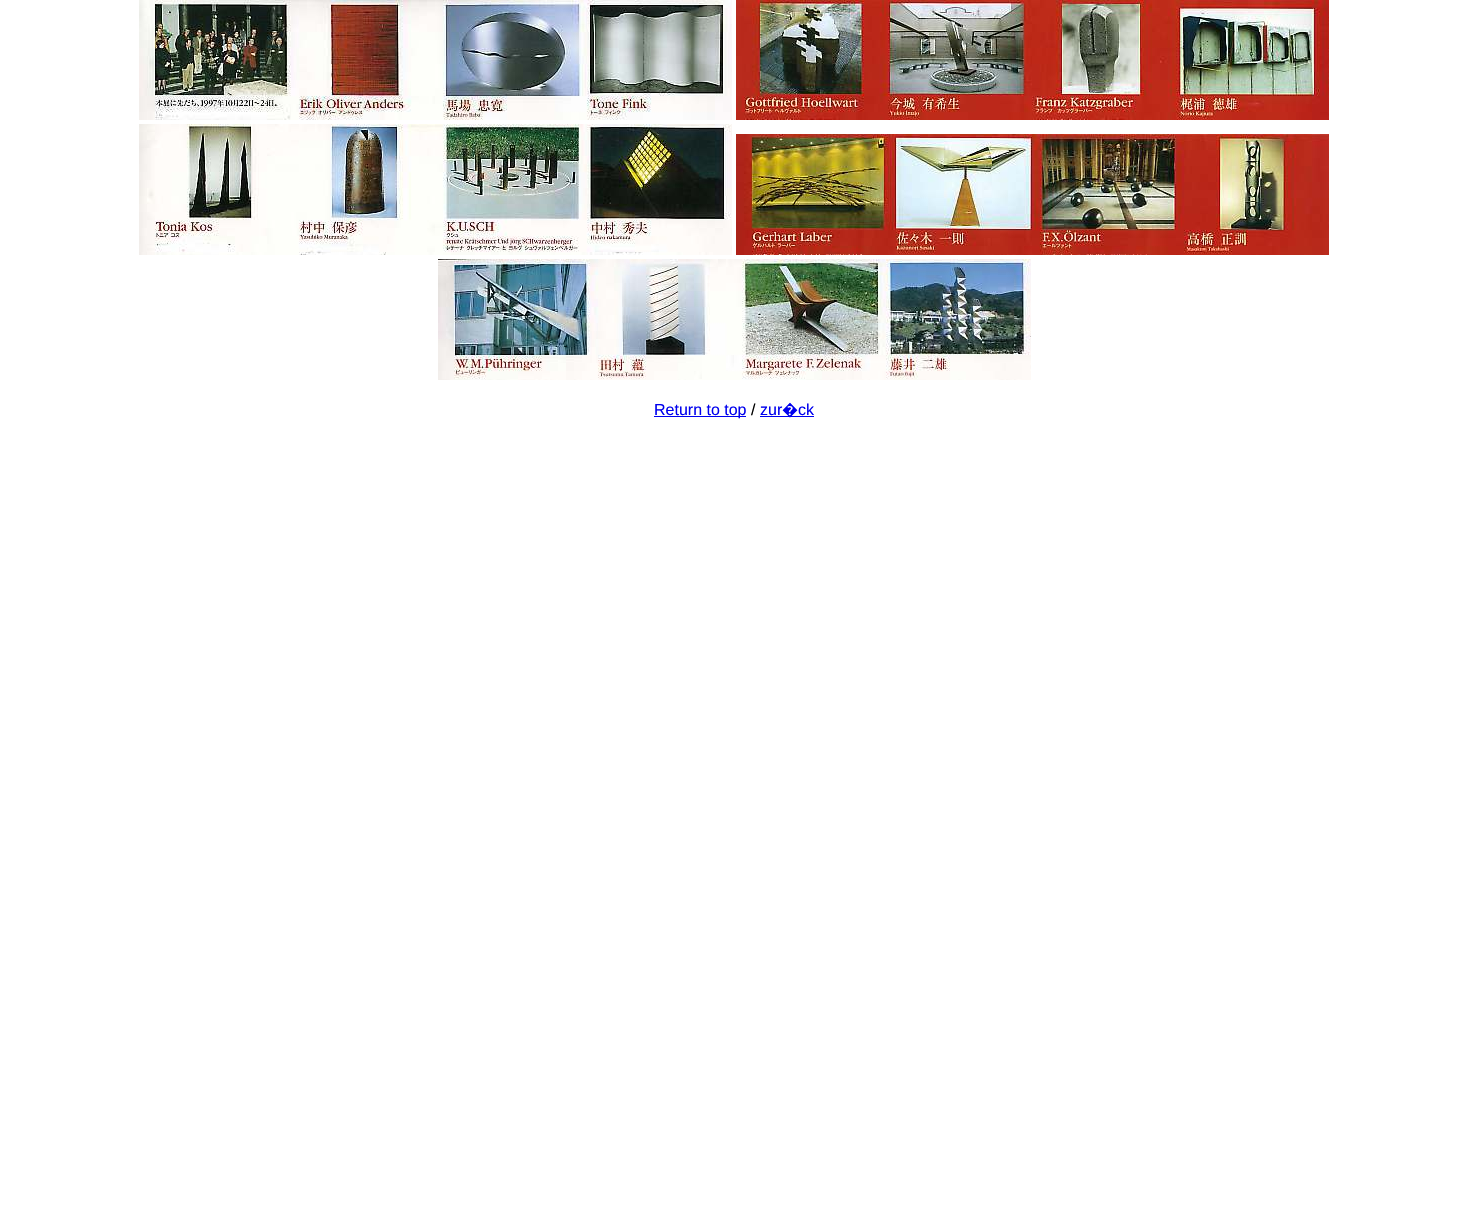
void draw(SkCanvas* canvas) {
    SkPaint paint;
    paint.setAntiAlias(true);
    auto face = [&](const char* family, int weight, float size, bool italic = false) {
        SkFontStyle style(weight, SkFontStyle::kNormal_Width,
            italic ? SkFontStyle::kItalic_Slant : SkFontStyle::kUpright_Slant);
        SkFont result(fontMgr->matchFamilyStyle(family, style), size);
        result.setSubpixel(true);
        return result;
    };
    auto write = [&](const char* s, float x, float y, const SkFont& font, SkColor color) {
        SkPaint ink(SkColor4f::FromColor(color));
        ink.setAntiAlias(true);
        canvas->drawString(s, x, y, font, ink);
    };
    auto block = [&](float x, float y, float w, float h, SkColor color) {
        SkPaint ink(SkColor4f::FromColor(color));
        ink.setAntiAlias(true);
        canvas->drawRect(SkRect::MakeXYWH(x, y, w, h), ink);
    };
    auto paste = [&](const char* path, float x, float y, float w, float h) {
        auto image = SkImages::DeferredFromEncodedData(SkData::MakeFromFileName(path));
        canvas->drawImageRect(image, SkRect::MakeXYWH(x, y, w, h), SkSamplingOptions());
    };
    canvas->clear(SK_ColorWHITE);
    paste("pic1.png", 139, 0, 593, 120);
    paste("pic2.png", 736, 0, 593, 120);
    paste("pic3.png", 139, 124, 593, 131);
    paste("pic4.png", 736, 134, 593, 121);
    paste("pic5.png", 438, 259, 593, 121);
    block(654, 416, 92, 1, SkColorSetRGB(0, 0, 238));
    auto kFont1 = face("Liberation Sans", 400, 16);
    write("Return to top", 654, 415, kFont1, SkColorSetRGB(0, 0, 238));
    write("/", 751, 415, kFont1, SK_ColorBLACK);
    write("zur", 760, 415, kFont1, SkColorSetRGB(0, 0, 238));
    block(760, 416, 54, 1, SkColorSetRGB(0, 0, 238));
    auto kFont2 = face("Noto Sans", 400, 16);
    write("�", 782, 415, kFont2, SkColorSetRGB(0, 0, 238));
    write("ck", 798, 415, kFont1, SkColorSetRGB(0, 0, 238));
}
